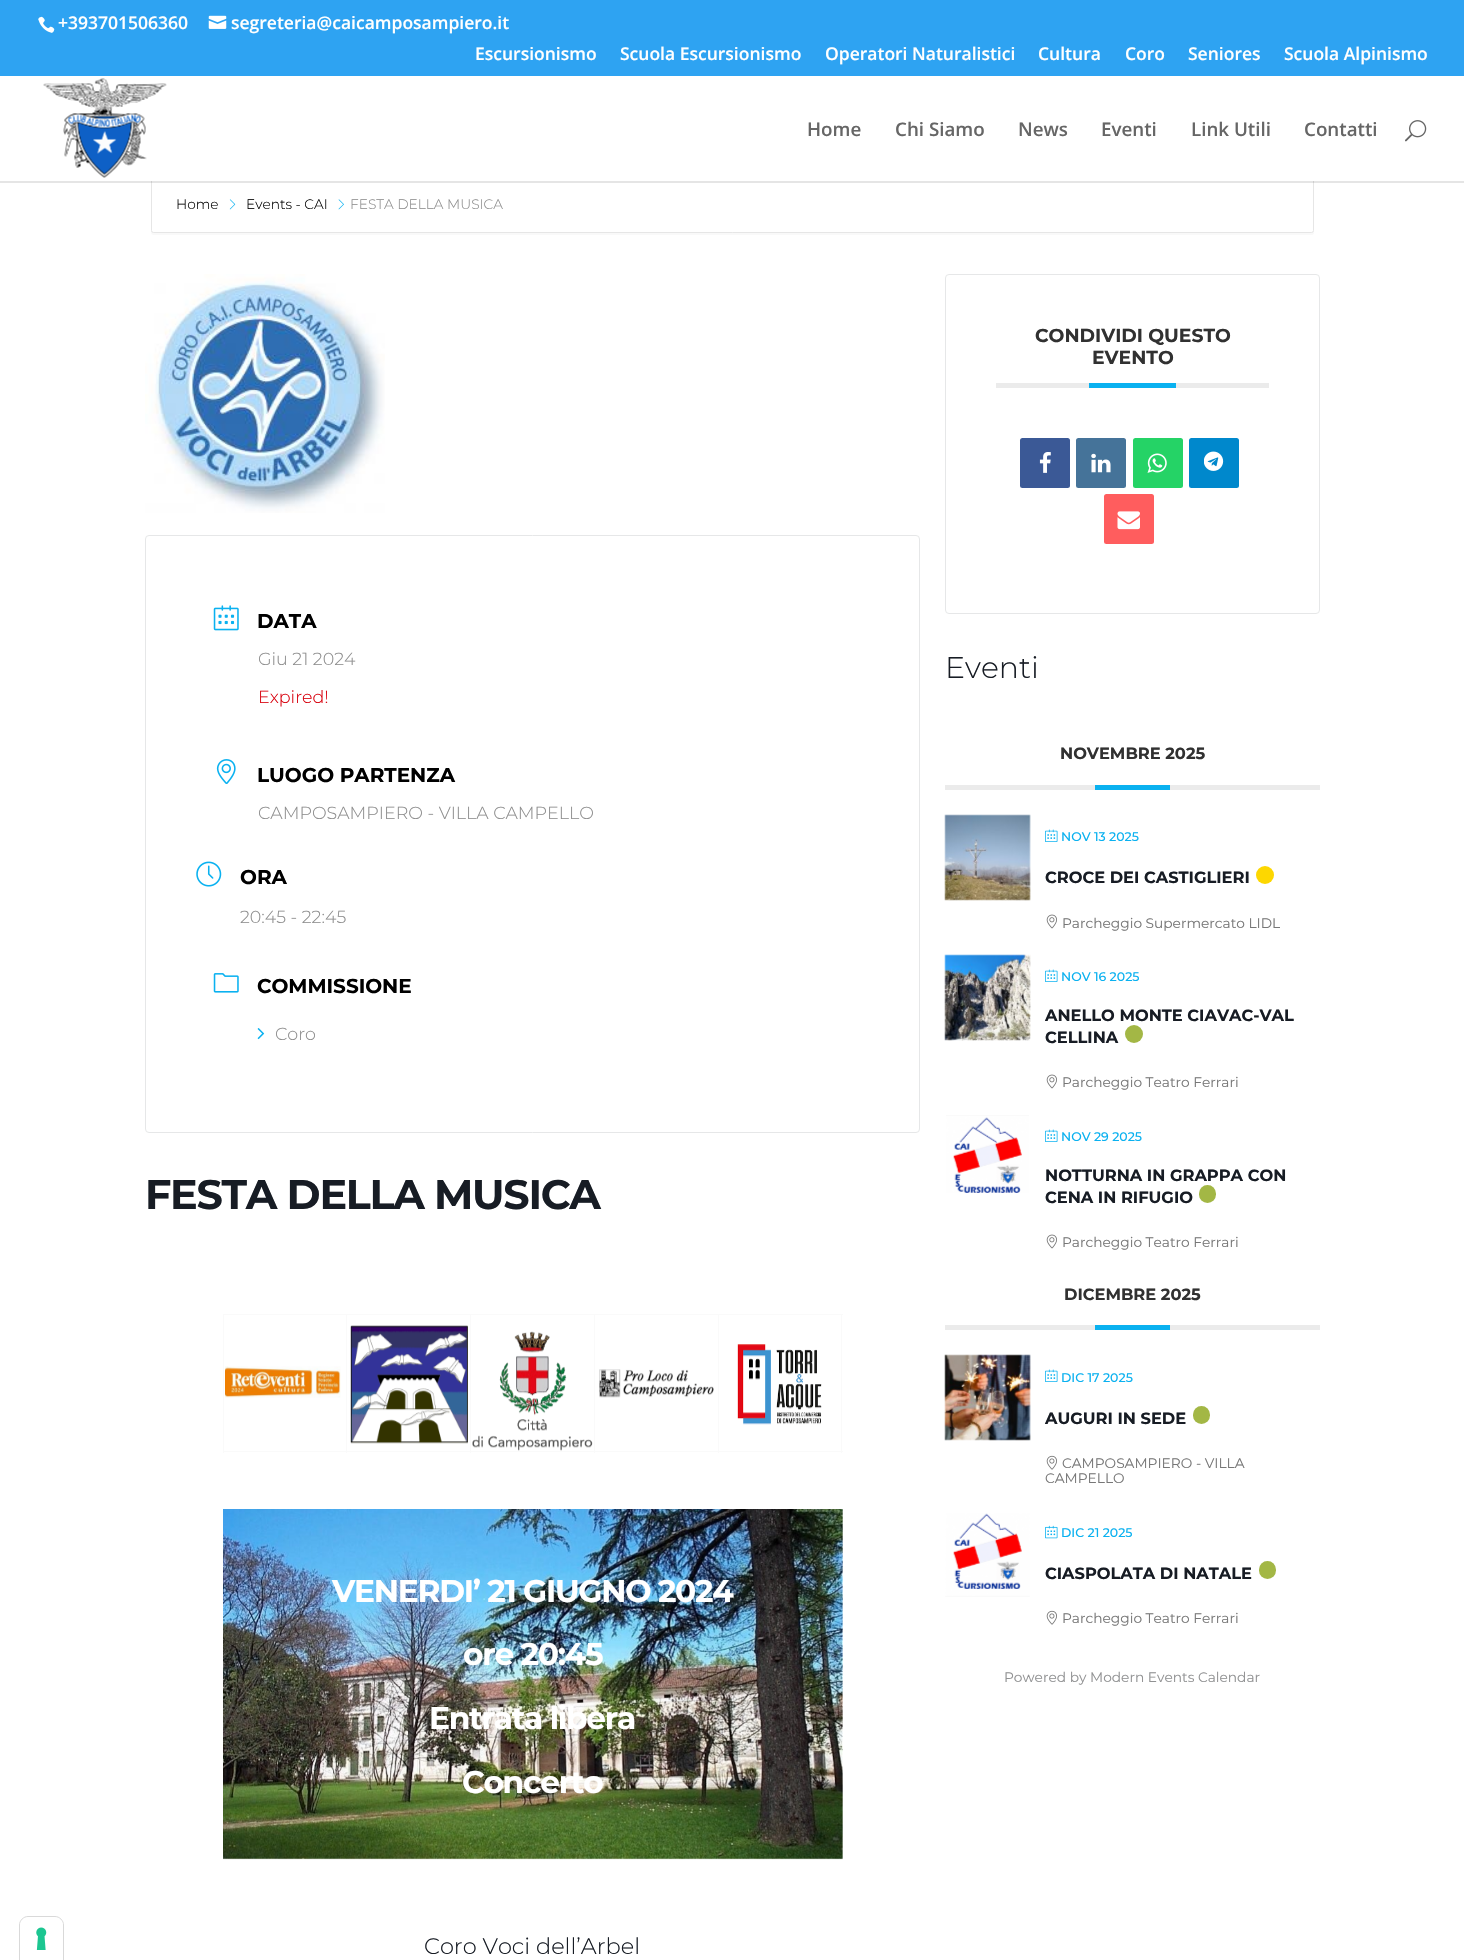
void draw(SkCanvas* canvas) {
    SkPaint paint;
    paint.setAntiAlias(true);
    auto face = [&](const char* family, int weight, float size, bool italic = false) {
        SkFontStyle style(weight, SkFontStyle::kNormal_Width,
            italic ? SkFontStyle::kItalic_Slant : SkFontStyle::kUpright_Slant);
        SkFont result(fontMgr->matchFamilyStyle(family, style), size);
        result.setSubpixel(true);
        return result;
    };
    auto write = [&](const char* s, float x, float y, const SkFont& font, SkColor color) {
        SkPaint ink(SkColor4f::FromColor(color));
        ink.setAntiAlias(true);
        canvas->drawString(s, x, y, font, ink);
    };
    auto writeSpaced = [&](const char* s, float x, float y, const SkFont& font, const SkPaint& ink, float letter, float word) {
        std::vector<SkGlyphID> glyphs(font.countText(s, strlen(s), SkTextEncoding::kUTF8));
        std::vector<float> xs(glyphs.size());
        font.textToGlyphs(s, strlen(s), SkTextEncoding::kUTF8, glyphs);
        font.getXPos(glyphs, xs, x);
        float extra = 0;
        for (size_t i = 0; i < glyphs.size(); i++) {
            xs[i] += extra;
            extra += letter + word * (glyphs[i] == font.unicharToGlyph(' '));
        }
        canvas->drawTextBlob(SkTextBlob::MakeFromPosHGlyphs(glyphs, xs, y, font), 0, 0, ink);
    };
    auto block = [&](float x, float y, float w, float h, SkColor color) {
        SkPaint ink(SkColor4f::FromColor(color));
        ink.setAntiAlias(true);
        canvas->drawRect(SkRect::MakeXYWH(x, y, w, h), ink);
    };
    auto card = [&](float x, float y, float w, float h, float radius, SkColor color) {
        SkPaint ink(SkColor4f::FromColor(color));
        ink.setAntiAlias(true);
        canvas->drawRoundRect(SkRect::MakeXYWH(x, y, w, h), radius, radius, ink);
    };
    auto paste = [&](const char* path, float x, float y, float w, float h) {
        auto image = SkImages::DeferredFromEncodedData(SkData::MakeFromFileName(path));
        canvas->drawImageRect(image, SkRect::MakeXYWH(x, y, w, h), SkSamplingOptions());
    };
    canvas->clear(SK_ColorWHITE);
    paint.setStyle(SkPaint::kStroke_Style);
    paint.setStrokeWidth(1);
    paint.setColor(SkColorSetRGB(217, 217, 217));
    canvas->drawPath(SkPathBuilder().moveTo(28, 1916.5f).lineTo(55, 1916.5f).cubicTo(59.5f, 1916.5f, 63.5f, 1920.5f, 63.5f, 1925).lineTo(63.5f, 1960.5f).lineTo(19.5f, 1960.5f).lineTo(19.5f, 1925).cubicTo(19.5f, 1920.5f, 23.5f, 1916.5f, 28, 1916.5f).close().detach(), paint);
    paint.setStyle(SkPaint::kFill_Style);
    paint.setColor(SK_ColorWHITE);
    canvas->drawPath(SkPathBuilder().moveTo(28, 1918).lineTo(55, 1918).cubicTo(59.5f, 1918, 63, 1921.5f, 63, 1926).lineTo(63, 1960).lineTo(20, 1960).lineTo(20, 1926).cubicTo(20, 1921.5f, 23.5f, 1918, 28, 1918).close().detach(), paint);
    paste("pic1.png", 36, 1927, 11, 23);
    block(0, 0, 1464, 76, SkColorSetRGB(46, 163, 242));
    paste("pic2.png", 38, 16, 17, 17);
    auto kFont1 = face("Open Sans", 600, 17.5f);
    write("+393701506360", 58, 29, kFont1, SK_ColorWHITE);
    paste("pic3.png", 208, 15, 19, 14);
    write("segreteria@caicamposampiero.it", 231, 29, kFont1, SK_ColorWHITE);
    write("Escursionismo", 475, 60, kFont1, SK_ColorWHITE);
    write("Scuola Escursionismo", 620, 60, kFont1, SK_ColorWHITE);
    write("Operatori Naturalistici", 825, 60, kFont1, SK_ColorWHITE);
    write("Cultura", 1038, 60, kFont1, SK_ColorWHITE);
    write("Coro", 1125, 60, kFont1, SK_ColorWHITE);
    write("Seniores", 1188, 60, kFont1, SK_ColorWHITE);
    write("Scuola Alpinismo", 1284, 60, kFont1, SK_ColorWHITE);
    paint.setColor(SkColorSetRGB(249, 249, 249));
    canvas->drawPath(SkPathBuilder().moveTo(151, 176).lineTo(151, 232).cubicTo(151, 234, 152, 235, 154, 235).lineTo(1312, 235).cubicTo(1313, 235, 1314, 234, 1314, 232).lineTo(1314, 176).lineTo(1314, 230).cubicTo(1314, 231, 1313, 232, 1311, 232).lineTo(154, 232).cubicTo(152, 232, 151, 231, 151, 230).close().detach(), paint);
    paint.setStyle(SkPaint::kStroke_Style);
    paint.setColor(SkColorSetRGB(230, 230, 230));
    canvas->drawRoundRect(SkRect::MakeXYWH(151.5f, 173.5f, 1162, 59), 2, 2, paint);
    block(0, 181, 1464, 2, SkColorSetARGB(26, 0, 0, 0));
    block(151, 173, 1163, 8, SK_ColorWHITE);
    paste("pic4.png", 43, 78, 124, 100);
    auto kFont2 = face("Open Sans", 600, 18.75f);
    write("Home", 807, 136, kFont2, SkColorSetRGB(102, 102, 102));
    write("Chi Siamo", 895, 136, kFont2, SkColorSetRGB(102, 102, 102));
    write("News", 1018, 136, kFont2, SkColorSetRGB(102, 102, 102));
    write("Eventi", 1101, 136, kFont2, SkColorSetRGB(102, 102, 102));
    write("Link Utili", 1191, 136, kFont2, SkColorSetRGB(102, 102, 102));
    write("Contatti", 1304, 136, kFont2, SkColorSetRGB(102, 102, 102));
    paste("pic5.png", 1405, 120, 22, 22);
    auto kFont3 = face("Montserrat", 300, 13.75f);
    write("Home", 176, 209, kFont3, SK_ColorBLACK);
    paste("pic6.png", 229, 199, 7, 11);
    write("Events - CAI", 246, 209, kFont3, SK_ColorBLACK);
    paste("pic7.png", 338, 199, 6, 11);
    write("FESTA DELLA MUSICA", 350, 209, kFont3, SkColorSetRGB(141, 141, 141));
    paste("pic8.png", 145, 274, 240, 239);
    paint.setColor(SkColorSetRGB(230, 231, 232));
    canvas->drawRoundRect(SkRect::MakeXYWH(145.5f, 535.5f, 774, 597), 3.5f, 3.5f, paint);
    paste("pic9.png", 213, 605, 26, 26);
    auto kFont4 = face("Montserrat", 700, 20);
    write("DATA", 257, 628, kFont4, SK_ColorBLACK);
    auto kFont5 = face("Montserrat", 300, 17.5f);
    write("Giu 21 2024", 258, 665, kFont5, SkColorSetRGB(141, 141, 141));
    write("Expired!", 258, 703, kFont5, SkColorSetRGB(216, 0, 12));
    paste("pic10.png", 216, 759, 20, 25);
    write("LUOGO PARTENZA", 257, 782, kFont4, SK_ColorBLACK);
    write("CAMPOSAMPIERO - VILLA CAMPELLO", 258, 819, kFont5, SkColorSetRGB(141, 141, 141));
    paste("pic11.png", 196, 861, 26, 26);
    write("ORA", 240, 884, kFont4, SK_ColorBLACK);
    write("20:45 - 22:45", 240, 923, kFont5, SkColorSetRGB(141, 141, 141));
    paste("pic12.png", 213, 973, 26, 20);
    write("COMMISSIONE", 257, 993, kFont4, SK_ColorBLACK);
    paste("pic13.png", 257, 1028, 8, 12);
    write("Coro", 275, 1040, kFont5, SkColorSetRGB(141, 141, 141));
    auto kFont6 = face("Montserrat", 700, 41.25f);
    paint.setStyle(SkPaint::kFill_Style);
    paint.setColor(SkColorSetRGB(23, 28, 36));
    writeSpaced("FESTA DELLA MUSICA", 145, 1209, kFont6, paint, -1.25f, 0);
    block(223, 1314, 620, 1, SkColorSetRGB(250, 250, 250));
    block(841, 1314, 1, 139, SkColorSetRGB(250, 250, 250));
    block(223, 1451, 620, 1, SkColorSetRGB(250, 250, 250));
    block(223, 1314, 1, 139, SkColorSetRGB(250, 250, 250));
    paste("pic14.png", 225, 1366, 116, 32);
    block(346, 1314, 1, 139, SkColorSetRGB(250, 250, 250));
    paste("pic15.png", 350, 1325, 118, 119);
    block(470, 1314, 1, 139, SkColorSetRGB(250, 250, 250));
    paste("pic16.png", 472, 1331, 121, 120);
    block(594, 1314, 1, 139, SkColorSetRGB(250, 250, 250));
    paste("pic17.png", 599, 1369, 115, 29);
    block(718, 1314, 1, 139, SkColorSetRGB(250, 250, 250));
    paste("pic18.png", 737, 1344, 85, 81);
    paste("pic19.png", 223, 1509, 620, 351);
    auto kFont7 = face("Montserrat", 700, 31.25f);
    paint.setColor(SK_ColorWHITE);
    writeSpaced("VENERDI’ 21 GIUGNO 2024", 332, 1602, kFont7, paint, -1.25f, 0);
    writeSpaced("ore 20:45", 463, 1665, kFont7, paint, -1.25f, 0);
    writeSpaced("Entrata libera", 429, 1729, kFont7, paint, -1.25f, 0);
    writeSpaced("Concerto", 462, 1793, kFont7, paint, -1.25f, 0);
    auto kFont8 = face("Montserrat", 300, 22.5f);
    write("Coro Voci dell’Arbel", 424, 1954, kFont8, SkColorSetRGB(23, 28, 36));
    paint.setStyle(SkPaint::kStroke_Style);
    paint.setColor(SkColorSetRGB(230, 231, 232));
    canvas->drawRoundRect(SkRect::MakeXYWH(945.5f, 274.5f, 374, 339), 3.5f, 3.5f, paint);
    block(996, 383, 273, 5, SkColorSetRGB(235, 235, 235));
    auto kFont9 = face("Montserrat", 700, 18.75f);
    write("CONDIVIDI QUESTO", 1035, 342, kFont9, SkColorSetRGB(49, 49, 49));
    write("EVENTO", 1092, 364, kFont9, SkColorSetRGB(49, 49, 49));
    block(1089, 383, 87, 5, SkColorSetRGB(10, 177, 240));
    card(1020, 438, 50, 50, 2.5f, SkColorSetRGB(59, 89, 150));
    paste("pic20.png", 1039, 452, 12, 21);
    card(1076, 438, 50, 50, 2.5f, SkColorSetRGB(69, 115, 153));
    paste("pic21.png", 1091, 453, 20, 20);
    card(1133, 438, 50, 50, 2.5f, SkColorSetRGB(37, 211, 102));
    paste("pic22.png", 1147, 453, 20, 20);
    card(1189, 438, 50, 50, 2.5f, SkColorSetRGB(0, 136, 204));
    paste("pic23.png", 1204, 451, 20, 20);
    card(1104, 494, 50, 50, 2.5f, SkColorSetRGB(255, 93, 94));
    paste("pic24.png", 1117, 511, 23, 19);
    auto kFont10 = face("Montserrat", 300, 30);
    write("Eventi", 945, 678, kFont10, SkColorSetRGB(23, 28, 36));
    block(945, 785, 375, 5, SkColorSetRGB(235, 235, 235));
    auto kFont11 = face("Montserrat", 700, 16.25f);
    write("NOVEMBRE 2025", 1060, 759, kFont11, SkColorSetRGB(49, 49, 49));
    block(1095, 785, 75, 5, SkColorSetRGB(10, 177, 240));
    paste("pic25.png", 944, 814, 87, 87);
    paste("pic26.png", 1045, 829, 13, 13);
    auto kFont12 = face("Montserrat", 500, 12.5f);
    write("NOV 13 2025", 1061, 841, kFont12, SkColorSetRGB(10, 177, 240));
    write("CROCE DEI CASTIGLIERI", 1045, 883, kFont11, SkColorSetRGB(23, 28, 36));
    paint.setStyle(SkPaint::kFill_Style);
    paint.setColor(SkColorSetRGB(253, 215, 0));
    canvas->drawCircle(1265, 875, 9, paint);
    paste("pic27.png", 1046, 914, 11, 15);
    auto kFont13 = face("Montserrat", 400, 13.75f);
    write("Parcheggio Supermercato LIDL", 1062, 928, kFont13, SkColorSetRGB(119, 119, 119));
    paste("pic28.png", 944, 954, 87, 87);
    paste("pic26.png", 1045, 969, 13, 13);
    write("NOV 16 2025", 1061, 981, kFont12, SkColorSetRGB(10, 177, 240));
    write("ANELLO MONTE CIAVAC-VAL", 1045, 1021, kFont11, SkColorSetRGB(23, 28, 36));
    write("CELLINA", 1045, 1043, kFont11, SkColorSetRGB(23, 28, 36));
    paint.setColor(SkColorSetRGB(163, 183, 69));
    canvas->drawCircle(1134, 1034, 9, paint);
    paste("pic27.png", 1046, 1074, 11, 15);
    write("Parcheggio Teatro Ferrari", 1062, 1087, kFont13, SkColorSetRGB(119, 119, 119));
    paste("pic29.png", 946, 1115, 83, 78);
    paste("pic26.png", 1045, 1129, 13, 13);
    write("NOV 29 2025", 1061, 1141, kFont12, SkColorSetRGB(10, 177, 240));
    write("NOTTURNA IN GRAPPA CON", 1045, 1181, kFont11, SkColorSetRGB(23, 28, 36));
    write("CENA IN RIFUGIO", 1045, 1203, kFont11, SkColorSetRGB(23, 28, 36));
    card(1199, 1185, 17, 18, 8.5f, SkColorSetRGB(163, 183, 69));
    paste("pic27.png", 1046, 1234, 11, 15);
    write("Parcheggio Teatro Ferrari", 1062, 1247, kFont13, SkColorSetRGB(119, 119, 119));
    block(945, 1325, 375, 5, SkColorSetRGB(235, 235, 235));
    write("DICEMBRE 2025", 1064, 1300, kFont11, SkColorSetRGB(49, 49, 49));
    block(1095, 1325, 75, 5, SkColorSetRGB(10, 177, 240));
    paste("pic30.png", 944, 1354, 87, 87);
    paste("pic26.png", 1045, 1369, 13, 13);
    write("DIC 17 2025", 1061, 1382, kFont12, SkColorSetRGB(10, 177, 240));
    write("AUGURI IN SEDE", 1045, 1424, kFont11, SkColorSetRGB(23, 28, 36));
    card(1193, 1406, 17, 18, 8.5f, SkColorSetRGB(163, 183, 69));
    paste("pic31.png", 1046, 1455, 11, 15);
    write("CAMPOSAMPIERO - VILLA", 1062, 1468, kFont13, SkColorSetRGB(119, 119, 119));
    write("CAMPELLO", 1045, 1483, kFont13, SkColorSetRGB(119, 119, 119));
    paste("pic32.png", 945, 1513, 85, 84);
    paste("pic33.png", 1045, 1525, 13, 14);
    write("DIC 21 2025", 1061, 1537, kFont12, SkColorSetRGB(10, 177, 240));
    write("CIASPOLATA DI NATALE", 1045, 1579, kFont11, SkColorSetRGB(23, 28, 36));
    card(1259, 1561, 17, 18, 8.5f, SkColorSetRGB(163, 183, 69));
    paste("pic31.png", 1046, 1610, 11, 15);
    write("Parcheggio Teatro Ferrari", 1062, 1623, kFont13, SkColorSetRGB(119, 119, 119));
    write("Powered by Modern Events Calendar", 1004, 1682, kFont13, SkColorSetRGB(145, 146, 147));
}
